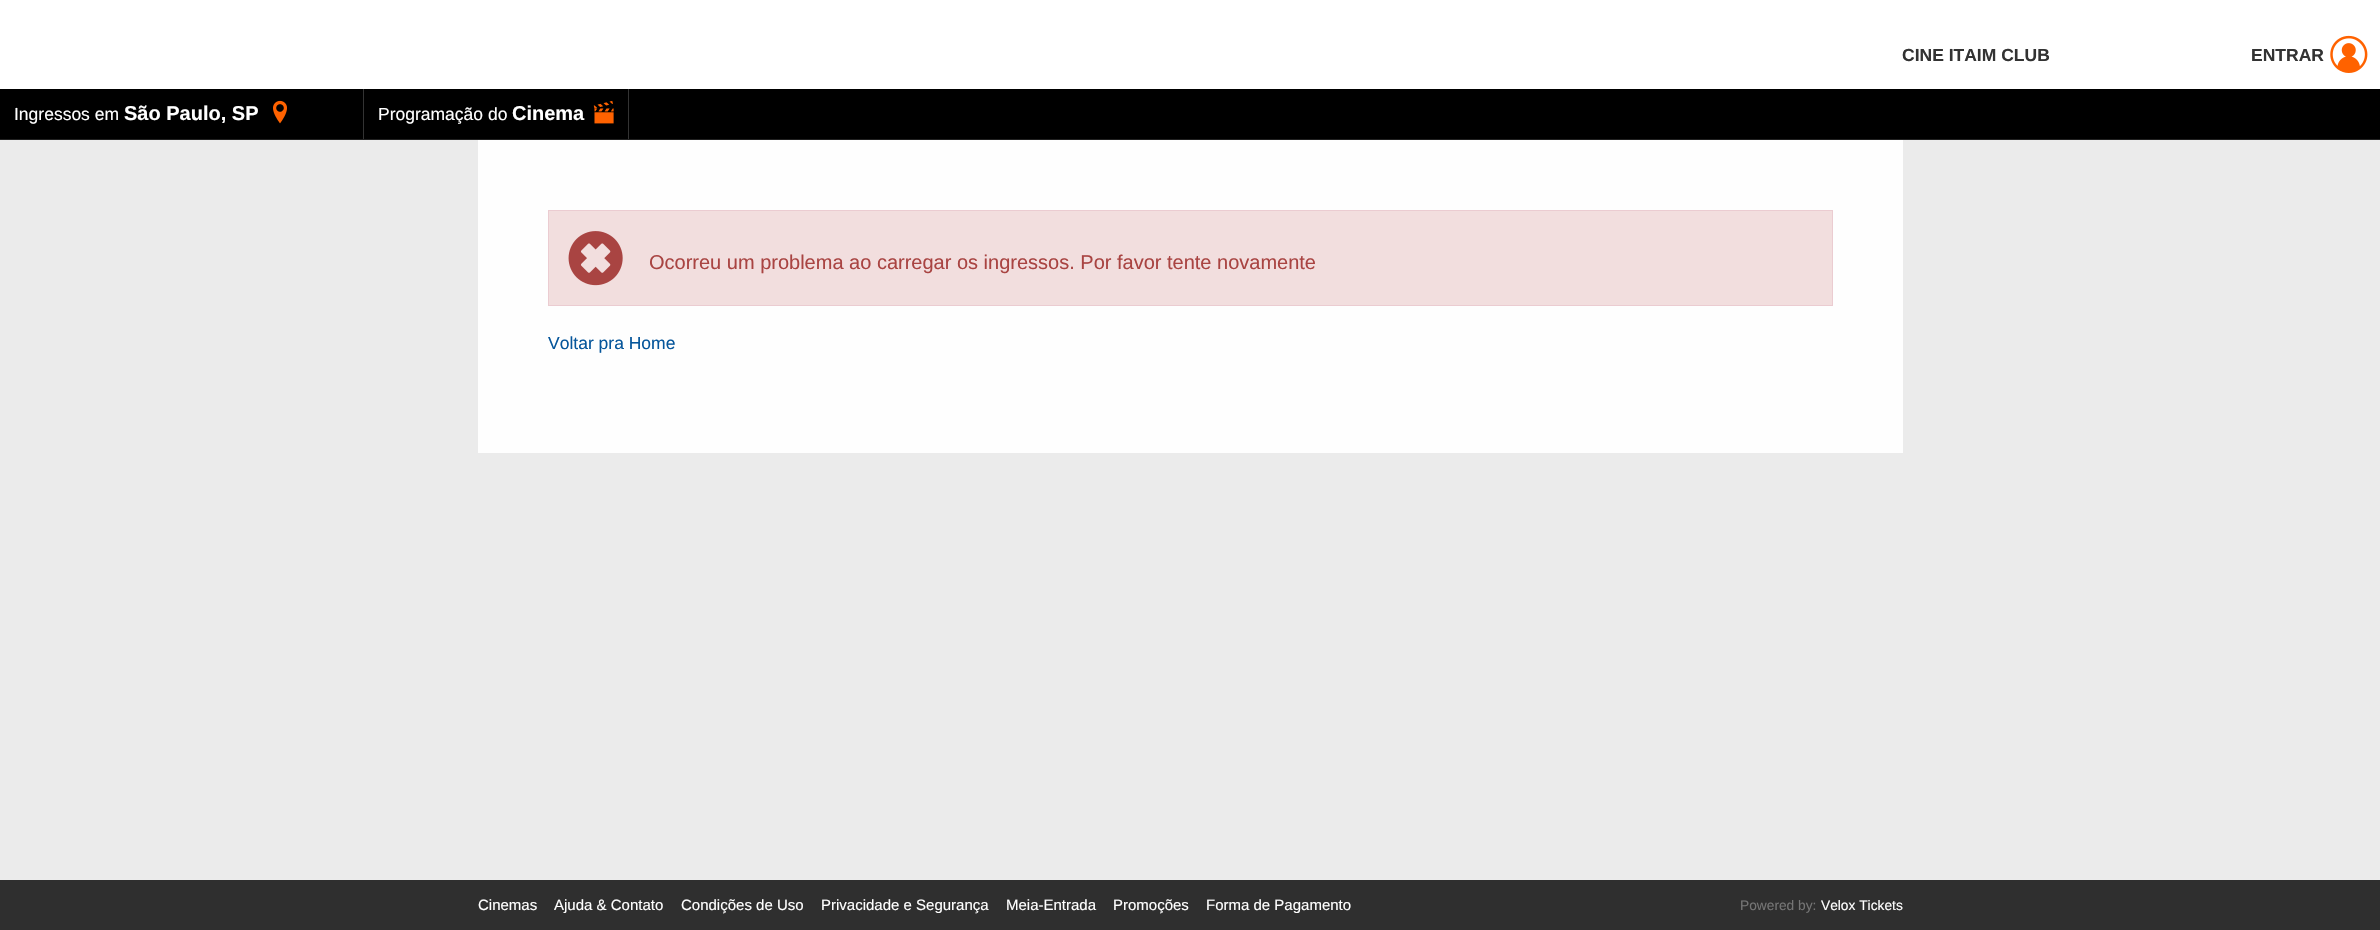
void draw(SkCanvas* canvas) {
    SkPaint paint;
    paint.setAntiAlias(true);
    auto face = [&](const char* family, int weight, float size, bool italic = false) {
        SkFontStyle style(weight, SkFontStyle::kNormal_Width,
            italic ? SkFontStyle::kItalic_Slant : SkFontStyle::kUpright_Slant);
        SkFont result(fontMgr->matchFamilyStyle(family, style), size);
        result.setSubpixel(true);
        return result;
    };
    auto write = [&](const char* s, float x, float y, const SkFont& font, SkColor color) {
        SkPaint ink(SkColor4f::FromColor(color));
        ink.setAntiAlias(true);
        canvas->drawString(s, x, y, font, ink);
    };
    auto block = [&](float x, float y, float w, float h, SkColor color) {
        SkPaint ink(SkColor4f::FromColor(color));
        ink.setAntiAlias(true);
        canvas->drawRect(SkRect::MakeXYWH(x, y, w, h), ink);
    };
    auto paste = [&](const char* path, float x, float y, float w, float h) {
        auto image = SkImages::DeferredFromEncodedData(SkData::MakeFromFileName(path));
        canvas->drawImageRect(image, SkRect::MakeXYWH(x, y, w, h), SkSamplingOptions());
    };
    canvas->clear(SkColorSetRGB(235, 235, 235));
    block(0, 0, 2380, 89, SK_ColorWHITE);
    auto kFont1 = face("Liberation Sans", 700, 17.5f);
    write("CINE ITAIM CLUB", 1902, 61, kFont1, SkColorSetRGB(51, 51, 51));
    write("ENTRAR", 2251, 61, kFont1, SkColorSetRGB(51, 51, 51));
    paste("pic1.png", 2330, 35, 38, 38);
    block(0, 89, 2380, 50, SK_ColorBLACK);
    block(0, 139, 2380, 1, SkColorSetRGB(33, 33, 33));
    block(363, 89, 1, 50, SkColorSetRGB(51, 51, 51));
    auto kFont2 = face("Liberation Sans", 400, 17.5f);
    write("Ingressos em", 14, 120, kFont2, SK_ColorWHITE);
    auto kFont3 = face("Liberation Sans", 700, 20);
    write("São Paulo, SP", 124, 120, kFont3, SK_ColorWHITE);
    paste("pic2.png", 273, 100, 14, 24);
    block(628, 89, 1, 50, SkColorSetRGB(51, 51, 51));
    write("Programação do", 378, 120, kFont2, SK_ColorWHITE);
    write("Cinema", 512, 120, kFont3, SK_ColorWHITE);
    paste("pic3.png", 593, 100, 21, 24);
    block(478, 140, 1425, 313, SkColorSetRGB(254, 254, 254));
    paint.setColor(SkColorSetRGB(242, 222, 222));
    canvas->drawRect(SkRect::MakeXYWH(548.5f, 210.5f, 1284, 95), paint);
    paint.setStyle(SkPaint::kStroke_Style);
    paint.setStrokeWidth(1);
    paint.setColor(SkColorSetRGB(235, 204, 209));
    canvas->drawRect(SkRect::MakeXYWH(548.5f, 210.5f, 1284, 95), paint);
    paste("pic4.png", 568, 231, 55, 55);
    auto kFont4 = face("Liberation Sans", 400, 20);
    write("Ocorreu um problema ao carregar os ingressos. Por favor tente novamente", 649, 269, kFont4, SkColorSetRGB(169, 68, 66));
    write("Voltar pra Home", 548, 349, kFont2, SkColorSetRGB(6, 86, 155));
    block(0, 880, 2380, 50, SkColorSetRGB(47, 47, 47));
    auto kFont5 = face("Liberation Sans", 400, 15);
    write("Cinemas", 478, 910, kFont5, SK_ColorWHITE);
    write("Ajuda & Contato", 554, 910, kFont5, SK_ColorWHITE);
    write("Condições de Uso", 681, 910, kFont5, SK_ColorWHITE);
    write("Privacidade e Segurança", 821, 910, kFont5, SK_ColorWHITE);
    write("Meia-Entrada", 1006, 910, kFont5, SK_ColorWHITE);
    write("Promoções", 1113, 910, kFont5, SK_ColorWHITE);
    write("Forma de Pagamento", 1206, 910, kFont5, SK_ColorWHITE);
    auto kFont6 = face("Liberation Sans", 400, 13.75f);
    write("Powered by:", 1740, 910, kFont6, SkColorSetRGB(117, 117, 117));
    write("Velox Tickets", 1821, 910, kFont6, SK_ColorWHITE);
}
